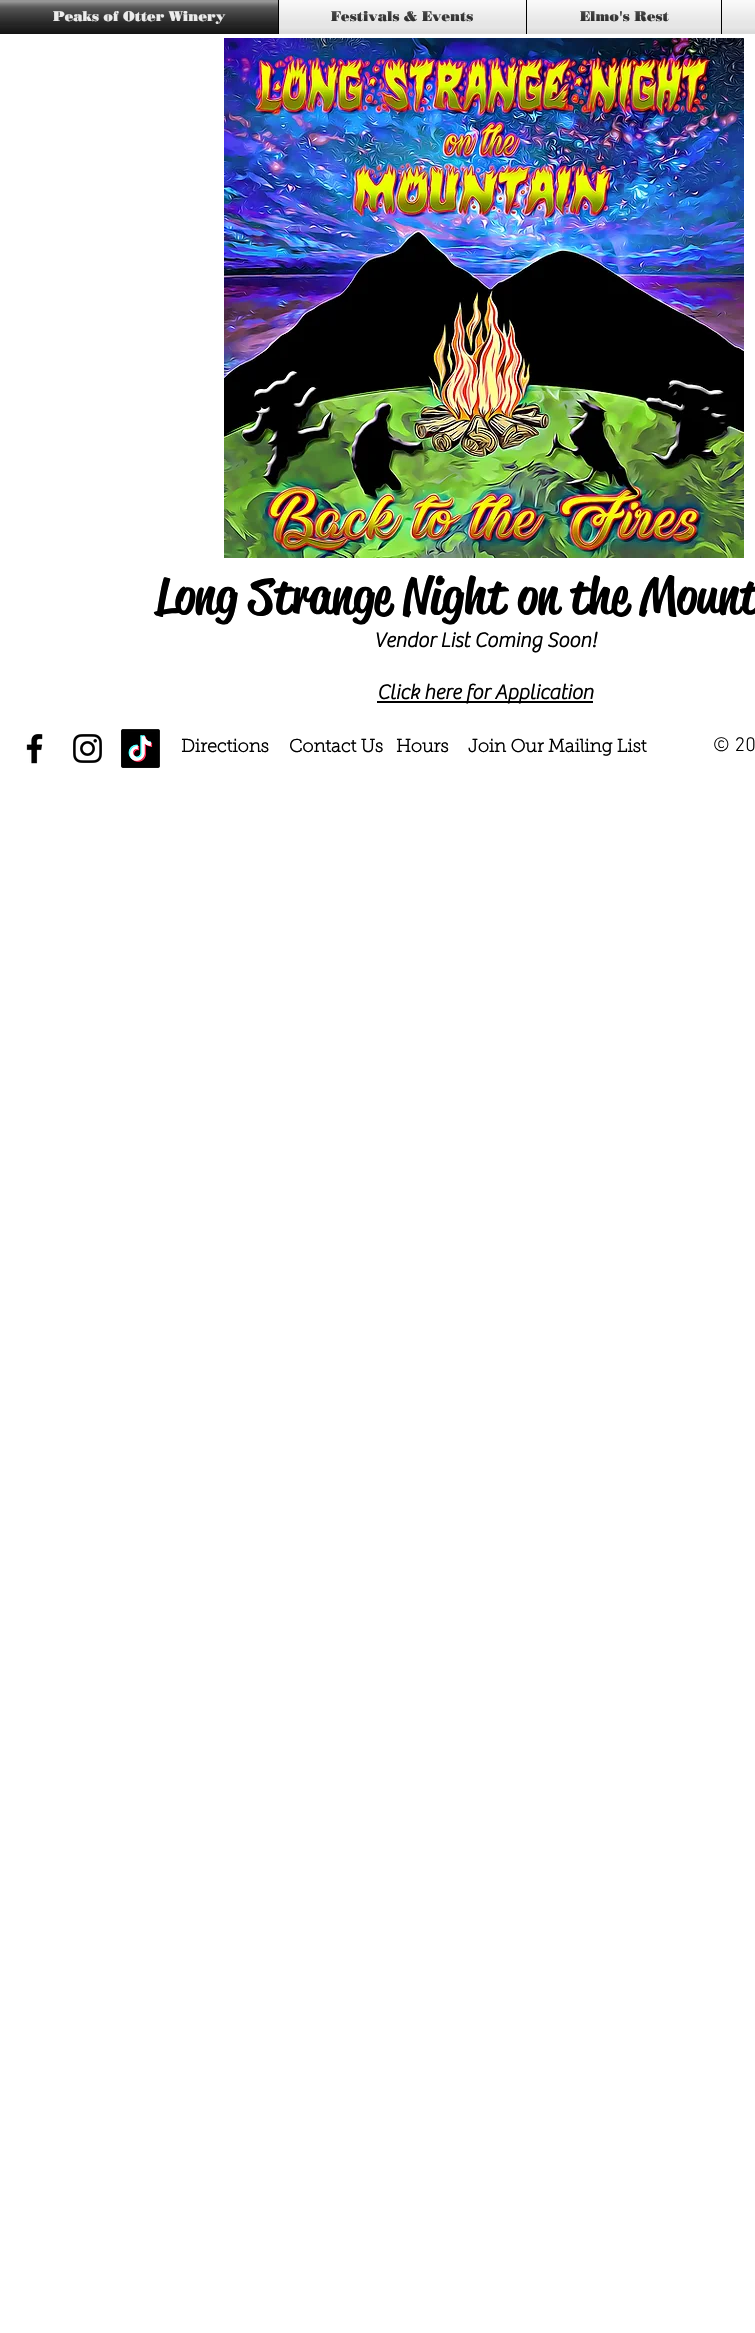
void draw(SkCanvas* canvas) {
    SkPaint paint;
    paint.setAntiAlias(true);
    auto face = [&](const char* family, int weight, float size, bool italic = false) {
        SkFontStyle style(weight, SkFontStyle::kNormal_Width,
            italic ? SkFontStyle::kItalic_Slant : SkFontStyle::kUpright_Slant);
        SkFont result(fontMgr->matchFamilyStyle(family, style), size);
        result.setSubpixel(true);
        return result;
    };
    auto write = [&](const char* s, float x, float y, const SkFont& font, SkColor color) {
        SkPaint ink(SkColor4f::FromColor(color));
        ink.setAntiAlias(true);
        canvas->drawString(s, x, y, font, ink);
    };
    auto block = [&](float x, float y, float w, float h, SkColor color) {
        SkPaint ink(SkColor4f::FromColor(color));
        ink.setAntiAlias(true);
        canvas->drawRect(SkRect::MakeXYWH(x, y, w, h), ink);
    };
    auto paste = [&](const char* path, float x, float y, float w, float h) {
        auto image = SkImages::DeferredFromEncodedData(SkData::MakeFromFileName(path));
        canvas->drawImageRect(image, SkRect::MakeXYWH(x, y, w, h), SkSamplingOptions());
    };
    canvas->clear(SK_ColorWHITE);
    block(0, 0, 279, 34, SK_ColorBLACK);
    auto kFont1 = face("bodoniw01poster", 900, 14);
    write("Peaks of Otter Winery", 53, 21, kFont1, SK_ColorWHITE);
    paste("pic1.png", 0, 0, 278, 34);
    paste("pic2.png", 0, 3, 278, 22);
    write("Festivals & Events", 331, 21, kFont1, SK_ColorBLACK);
    paste("pic3.png", 331, 11, 143, 11);
    paste("pic4.png", 279, 0, 247, 34);
    block(526, 0, 1, 34, SK_ColorBLACK);
    write("Elmo's Rest", 580, 21, kFont1, SK_ColorBLACK);
    paste("pic5.png", 579, 11, 89, 11);
    paste("pic6.png", 527, 0, 194, 34);
    block(721, 0, 1, 34, SK_ColorBLACK);
    paste("pic7.png", 722, 0, 33, 34);
    paste("pic8.png", 224, 38, 520, 520);
    auto kFont2 = face("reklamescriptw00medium", 500, 50);
    write("Long Strange Night on the Mount", 155, 613, kFont2, SK_ColorBLACK);
    auto kFont3 = face("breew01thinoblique", 700, 21);
    write("Vendor List Coming Soon!", 374, 647, kFont3, SK_ColorBLACK);
    block(377, 701, 216, 2, SK_ColorBLACK);
    write("Click here for Application", 377, 699, kFont3, SK_ColorBLACK);
    paste("pic9.png", 26, 734, 17, 30);
    paste("pic10.png", 73, 734, 29, 29);
    paste("pic11.png", 121, 729, 39, 39);
    auto kFont4 = face("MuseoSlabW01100", 700, 18);
    write("Directions", 181, 752, kFont4, SK_ColorBLACK);
    write("Contact Us", 289, 752, kFont4, SK_ColorBLACK);
    write("Hours", 396, 752, kFont4, SK_ColorBLACK);
    write("Join Our Mailing List", 468, 752, kFont4, SK_ColorBLACK);
    auto kFont5 = face("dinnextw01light", 300, 20);
    write("© 20", 713, 751, kFont5, SK_ColorBLACK);
}
